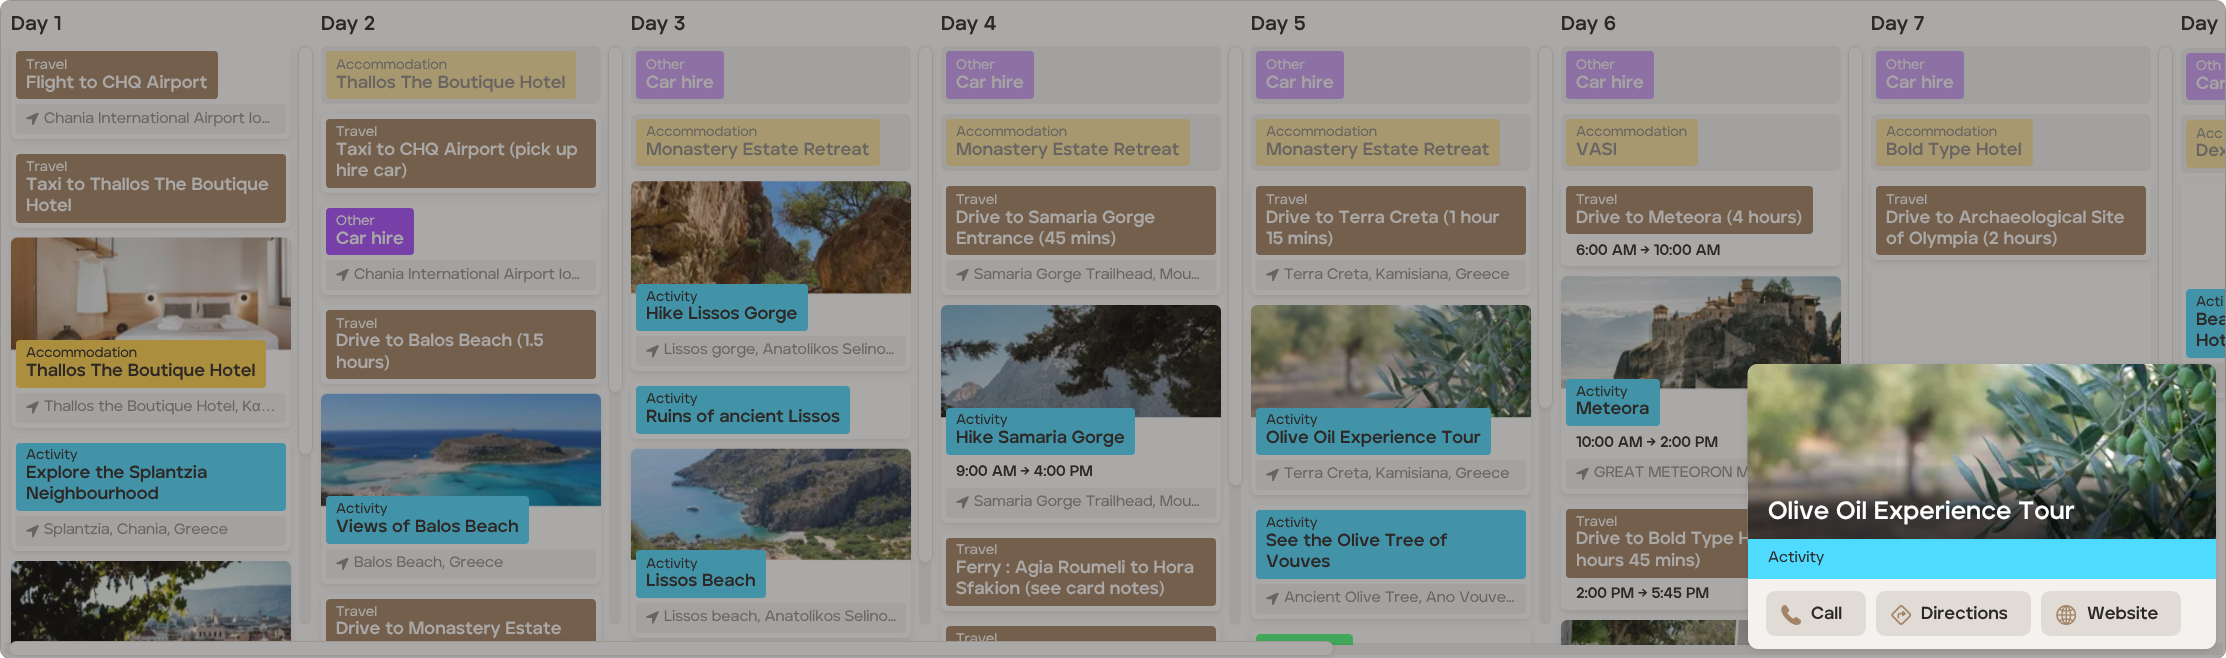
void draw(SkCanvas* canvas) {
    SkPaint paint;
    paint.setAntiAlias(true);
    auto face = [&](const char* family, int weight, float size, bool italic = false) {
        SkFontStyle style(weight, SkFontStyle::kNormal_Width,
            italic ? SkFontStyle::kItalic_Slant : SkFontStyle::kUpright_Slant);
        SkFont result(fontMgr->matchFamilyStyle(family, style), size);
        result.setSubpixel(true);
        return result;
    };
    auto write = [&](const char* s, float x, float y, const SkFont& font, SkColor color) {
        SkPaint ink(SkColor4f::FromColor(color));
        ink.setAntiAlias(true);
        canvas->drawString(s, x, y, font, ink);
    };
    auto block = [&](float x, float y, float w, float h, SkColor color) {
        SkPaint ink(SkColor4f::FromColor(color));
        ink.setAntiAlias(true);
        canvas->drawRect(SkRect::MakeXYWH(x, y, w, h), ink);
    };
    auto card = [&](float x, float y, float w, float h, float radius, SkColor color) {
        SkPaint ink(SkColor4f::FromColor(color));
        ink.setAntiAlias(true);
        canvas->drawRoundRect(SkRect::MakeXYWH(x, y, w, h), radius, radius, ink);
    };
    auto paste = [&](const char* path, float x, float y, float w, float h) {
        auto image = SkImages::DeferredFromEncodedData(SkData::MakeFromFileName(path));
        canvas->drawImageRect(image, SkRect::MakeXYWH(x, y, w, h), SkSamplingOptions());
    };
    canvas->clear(SK_ColorWHITE);
    paint.setStyle(SkPaint::kStroke_Style);
    paint.setStrokeWidth(1);
    paint.setColor(SkColorSetRGB(224, 219, 212));
    canvas->drawRoundRect(SkRect::MakeXYWH(0.5f, 0.5f, 2225, 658), 9.5f, 9.5f, paint);
    auto kFont1 = face("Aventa", 700, 20);
    write("Day 1", 11, 30, kFont1, SkColorSetRGB(44, 40, 37));
    paint.setStyle(SkPaint::kFill_Style);
    paint.setColor(SkColorSetARGB(26, 0, 0, 0));
    paint.setMaskFilter(SkMaskFilter::MakeBlur(kNormal_SkBlurStyle, 3));
    canvas->drawRoundRect(SkRect::MakeXYWH(11, 49, 280, 92), 6, 6, paint);
    paint.setMaskFilter(nullptr);
    card(11, 46, 280, 93, 6, SK_ColorWHITE);
    card(16, 51, 202, 48, 4, SkColorSetRGB(162, 131, 102));
    auto kFont2 = face("Aventa", 500, 13.75f);
    write("Travel", 26, 69, kFont2, SK_ColorWHITE);
    auto kFont3 = face("Aventa", 700, 17.5f);
    write("Flight to CHQ Airport", 26, 88, kFont3, SK_ColorWHITE);
    card(16, 104, 270, 30, 4, SkColorSetRGB(244, 242, 239));
    paste("pic1.png", 26, 113, 13, 12);
    auto kFont4 = face("Aventa", 500, 15);
    write("Chania International Airport Io…", 44, 123, kFont4, SkColorSetRGB(142, 140, 137));
    paint.setMaskFilter(SkMaskFilter::MakeBlur(kNormal_SkBlurStyle, 3));
    canvas->drawRoundRect(SkRect::MakeXYWH(11, 151, 280, 79), 6, 6, paint);
    paint.setMaskFilter(nullptr);
    card(11, 149, 280, 79, 6, SK_ColorWHITE);
    card(16, 154, 270, 69, 4, SkColorSetRGB(162, 131, 102));
    write("Travel", 26, 171, kFont2, SK_ColorWHITE);
    write("Taxi to Thallos The Boutique", 26, 190, kFont3, SK_ColorWHITE);
    write("Hotel", 26, 211, kFont3, SK_ColorWHITE);
    paint.setMaskFilter(SkMaskFilter::MakeBlur(kNormal_SkBlurStyle, 3));
    canvas->drawRoundRect(SkRect::MakeXYWH(11, 240, 280, 190), 6, 6, paint);
    paint.setMaskFilter(nullptr);
    card(11, 238, 280, 190, 6, SK_ColorWHITE);
    paste("pic2.png", 11, 237, 280, 114);
    card(16, 340, 250, 48, 4, SkColorSetRGB(255, 211, 79));
    write("Accommodation", 26, 357, kFont2, SkColorSetRGB(44, 40, 37));
    write("Thallos The Boutique Hotel", 26, 376, kFont3, SkColorSetRGB(44, 40, 37));
    card(16, 393, 270, 30, 4, SkColorSetRGB(244, 242, 239));
    paste("pic3.png", 26, 401, 13, 13);
    write("Thallos the Boutique Hotel,", 44, 411, kFont4, SkColorSetRGB(142, 140, 137));
    auto kFont5 = face("Liberation Sans", 400, 15);
    write("Κα…", 242, 411, kFont5, SkColorSetRGB(142, 140, 137));
    paint.setMaskFilter(SkMaskFilter::MakeBlur(kNormal_SkBlurStyle, 3));
    canvas->drawRoundRect(SkRect::MakeXYWH(11, 440, 280, 114), 6, 6, paint);
    paint.setMaskFilter(nullptr);
    card(11, 438, 280, 113, 6, SK_ColorWHITE);
    card(16, 443, 270, 68, 4, SkColorSetRGB(79, 218, 255));
    write("Activity", 26, 459, kFont2, SkColorSetRGB(44, 40, 37));
    write("Explore the Splantzia", 26, 478, kFont3, SkColorSetRGB(44, 40, 37));
    write("Neighbourhood", 26, 499, kFont3, SkColorSetRGB(44, 40, 37));
    card(16, 516, 270, 30, 4, SkColorSetRGB(244, 242, 239));
    paste("pic4.png", 26, 525, 13, 13);
    write("Splantzia, Chania, Greece", 44, 534, kFont4, SkColorSetRGB(142, 140, 137));
    canvas->save();
    canvas->clipRect(SkRect::MakeXYWH(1, 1, 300, 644));
    paint.setMaskFilter(SkMaskFilter::MakeBlur(kNormal_SkBlurStyle, 3));
    canvas->drawRoundRect(SkRect::MakeXYWH(11, 564, 280, 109), 6, 6, paint);
    paint.setMaskFilter(nullptr);
    canvas->restore();
    paint.setColor(SK_ColorWHITE);
    canvas->drawPath(SkPathBuilder().moveTo(17, 561).lineTo(285, 561).cubicTo(288.5f, 561, 291, 563.5f, 291, 567).lineTo(291, 645).lineTo(11, 645).lineTo(11, 567).cubicTo(11, 563.5f, 13.5f, 561, 17, 561).close().detach(), paint);
    paste("pic5.png", 11, 561, 280, 83);
    card(299, 46, 12, 579, 6, SkColorSetRGB(242, 242, 242));
    paint.setColor(SkColorSetARGB(20, 0, 0, 0));
    paint.setMaskFilter(SkMaskFilter::MakeBlur(kNormal_SkBlurStyle, 2.5f));
    canvas->drawRoundRect(SkRect::MakeXYWH(298, 48, 15, 408), 7.5f, 7.5f, paint);
    paint.setMaskFilter(nullptr);
    paint.setColor(SK_ColorWHITE);
    canvas->drawRoundRect(SkRect::MakeXYWH(298.5f, 46.5f, 14, 408), 7, 7, paint);
    paint.setStyle(SkPaint::kStroke_Style);
    paint.setColor(SkColorSetRGB(231, 225, 217));
    canvas->drawRoundRect(SkRect::MakeXYWH(298.5f, 46.5f, 14, 408), 7, 7, paint);
    write("Day 2", 321, 30, kFont1, SkColorSetRGB(44, 40, 37));
    card(321, 46, 280, 58, 6, SkColorSetRGB(242, 242, 242));
    card(326, 51, 250, 48, 4, SkColorSetRGB(249, 227, 161));
    write("Accommodation", 336, 69, kFont2, SkColorSetRGB(142, 140, 137));
    write("Thallos The Boutique Hotel", 336, 88, kFont3, SkColorSetRGB(142, 140, 137));
    paint.setStyle(SkPaint::kFill_Style);
    paint.setColor(SkColorSetARGB(26, 0, 0, 0));
    paint.setMaskFilter(SkMaskFilter::MakeBlur(kNormal_SkBlurStyle, 3));
    canvas->drawRoundRect(SkRect::MakeXYWH(321, 116, 280, 79), 6, 6, paint);
    paint.setMaskFilter(nullptr);
    card(321, 114, 280, 79, 6, SK_ColorWHITE);
    card(326, 119, 270, 69, 4, SkColorSetRGB(162, 131, 102));
    write("Travel", 336, 136, kFont2, SK_ColorWHITE);
    write("Taxi to CHQ Airport (pick up", 336, 155, kFont3, SK_ColorWHITE);
    write("hire car)", 336, 176, kFont3, SK_ColorWHITE);
    paint.setMaskFilter(SkMaskFilter::MakeBlur(kNormal_SkBlurStyle, 3));
    canvas->drawRoundRect(SkRect::MakeXYWH(321, 205, 280, 93), 6, 6, paint);
    paint.setMaskFilter(nullptr);
    card(321, 203, 280, 92, 6, SK_ColorWHITE);
    card(326, 208, 88, 47, 4, SkColorSetRGB(168, 79, 255));
    write("Other", 336, 225, kFont2, SK_ColorWHITE);
    write("Car hire", 336, 244, kFont3, SK_ColorWHITE);
    card(326, 260, 270, 30, 4, SkColorSetRGB(244, 242, 239));
    paste("pic6.png", 336, 269, 13, 12);
    write("Chania International Airport Io…", 354, 279, kFont4, SkColorSetRGB(142, 140, 137));
    paint.setMaskFilter(SkMaskFilter::MakeBlur(kNormal_SkBlurStyle, 3));
    canvas->drawRoundRect(SkRect::MakeXYWH(321, 308, 280, 78), 6, 6, paint);
    paint.setMaskFilter(nullptr);
    card(321, 305, 280, 79, 6, SK_ColorWHITE);
    card(326, 310, 270, 69, 4, SkColorSetRGB(162, 131, 102));
    write("Travel", 336, 328, kFont2, SK_ColorWHITE);
    write("Drive to Balos Beach (1.5", 336, 346, kFont3, SK_ColorWHITE);
    write("hours)", 336, 368, kFont3, SK_ColorWHITE);
    paint.setMaskFilter(SkMaskFilter::MakeBlur(kNormal_SkBlurStyle, 3));
    canvas->drawRoundRect(SkRect::MakeXYWH(321, 396, 280, 190), 6, 6, paint);
    paint.setMaskFilter(nullptr);
    card(321, 394, 280, 190, 6, SK_ColorWHITE);
    paste("pic7.png", 321, 393, 280, 114);
    card(326, 496, 203, 48, 4, SkColorSetRGB(79, 218, 255));
    write("Activity", 336, 513, kFont2, SkColorSetRGB(44, 40, 37));
    write("Views of Balos Beach", 336, 532, kFont3, SkColorSetRGB(44, 40, 37));
    card(326, 549, 270, 30, 4, SkColorSetRGB(244, 242, 239));
    paste("pic1.png", 336, 558, 13, 12);
    write("Balos Beach, Greece", 354, 567, kFont4, SkColorSetRGB(142, 140, 137));
    canvas->save();
    canvas->clipRect(SkRect::MakeXYWH(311, 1, 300, 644));
    paint.setMaskFilter(SkMaskFilter::MakeBlur(kNormal_SkBlurStyle, 3));
    canvas->drawRoundRect(SkRect::MakeXYWH(321, 596, 280, 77), 6, 6, paint);
    paint.setMaskFilter(nullptr);
    canvas->restore();
    paint.setColor(SK_ColorWHITE);
    canvas->drawPath(SkPathBuilder().moveTo(327, 594).lineTo(595, 594).cubicTo(598.5f, 594, 601, 596.5f, 601, 600).lineTo(601, 645).lineTo(321, 645).lineTo(321, 600).cubicTo(321, 596.5f, 323.5f, 594, 327, 594).close().detach(), paint);
    paint.setColor(SkColorSetRGB(162, 131, 102));
    canvas->drawPath(SkPathBuilder().moveTo(330, 599).lineTo(592, 599).cubicTo(594, 599, 596, 601, 596, 603).lineTo(596, 645).lineTo(326, 645).lineTo(326, 603).cubicTo(326, 601, 328, 599, 330, 599).close().detach(), paint);
    write("Travel", 336, 616, kFont2, SK_ColorWHITE);
    write("Drive to Monastery Estate", 336, 634, kFont3, SK_ColorWHITE);
    card(609, 46, 12, 579, 6, SkColorSetRGB(242, 242, 242));
    paint.setColor(SkColorSetARGB(20, 0, 0, 0));
    paint.setMaskFilter(SkMaskFilter::MakeBlur(kNormal_SkBlurStyle, 2.5f));
    canvas->drawRoundRect(SkRect::MakeXYWH(608, 48, 15, 346), 7.5f, 7.5f, paint);
    paint.setMaskFilter(nullptr);
    paint.setColor(SK_ColorWHITE);
    canvas->drawRoundRect(SkRect::MakeXYWH(608.5f, 46.5f, 14, 346), 7, 7, paint);
    paint.setStyle(SkPaint::kStroke_Style);
    paint.setColor(SkColorSetRGB(231, 225, 217));
    canvas->drawRoundRect(SkRect::MakeXYWH(608.5f, 46.5f, 14, 346), 7, 7, paint);
    write("Day 3", 631, 30, kFont1, SkColorSetRGB(44, 40, 37));
    card(631, 46, 280, 58, 6, SkColorSetRGB(242, 242, 242));
    card(636, 51, 88, 48, 4, SkColorSetRGB(205, 161, 249));
    write("Other", 646, 69, kFont2, SkColorSetRGB(249, 249, 249));
    write("Car hire", 646, 88, kFont3, SkColorSetRGB(249, 249, 249));
    card(631, 114, 280, 57, 6, SkColorSetRGB(242, 242, 242));
    card(636, 119, 244, 47, 4, SkColorSetRGB(249, 227, 161));
    write("Accommodation", 646, 136, kFont2, SkColorSetRGB(142, 140, 137));
    write("Monastery Estate Retreat", 646, 155, kFont3, SkColorSetRGB(142, 140, 137));
    paint.setStyle(SkPaint::kFill_Style);
    paint.setColor(SkColorSetARGB(26, 0, 0, 0));
    paint.setMaskFilter(SkMaskFilter::MakeBlur(kNormal_SkBlurStyle, 3));
    canvas->drawRoundRect(SkRect::MakeXYWH(631, 184, 280, 190), 6, 6, paint);
    paint.setMaskFilter(nullptr);
    card(631, 181, 280, 190, 6, SK_ColorWHITE);
    paste("pic8.png", 631, 181, 280, 114);
    card(636, 284, 172, 47, 4, SkColorSetRGB(79, 218, 255));
    write("Activity", 646, 301, kFont2, SkColorSetRGB(44, 40, 37));
    write("Hike Lissos Gorge", 646, 319, kFont3, SkColorSetRGB(44, 40, 37));
    card(636, 336, 270, 30, 4, SkColorSetRGB(244, 242, 239));
    paste("pic4.png", 646, 345, 13, 13);
    write("Lissos gorge, Anatolikos Selino…", 664, 354, kFont4, SkColorSetRGB(142, 140, 137));
    paint.setMaskFilter(SkMaskFilter::MakeBlur(kNormal_SkBlurStyle, 3));
    canvas->drawRoundRect(SkRect::MakeXYWH(631, 384, 280, 57), 6, 6, paint);
    paint.setMaskFilter(nullptr);
    card(631, 381, 280, 58, 6, SK_ColorWHITE);
    card(636, 386, 214, 48, 4, SkColorSetRGB(79, 218, 255));
    write("Activity", 646, 403, kFont2, SkColorSetRGB(44, 40, 37));
    write("Ruins of ancient Lissos", 646, 422, kFont3, SkColorSetRGB(44, 40, 37));
    paint.setMaskFilter(SkMaskFilter::MakeBlur(kNormal_SkBlurStyle, 3));
    canvas->drawRoundRect(SkRect::MakeXYWH(631, 451, 280, 189), 6, 6, paint);
    paint.setMaskFilter(nullptr);
    card(631, 449, 280, 189, 6, SK_ColorWHITE);
    paste("pic9.png", 631, 448, 280, 113);
    card(636, 550, 130, 48, 4, SkColorSetRGB(79, 218, 255));
    write("Activity", 646, 568, kFont2, SkColorSetRGB(44, 40, 37));
    write("Lissos Beach", 646, 586, kFont3, SkColorSetRGB(44, 40, 37));
    card(636, 603, 270, 30, 4, SkColorSetRGB(244, 242, 239));
    paste("pic3.png", 646, 611, 13, 13);
    write("Lissos beach, Anatolikos Selino…", 664, 621, kFont4, SkColorSetRGB(142, 140, 137));
    card(919, 46, 12, 579, 6, SkColorSetRGB(242, 242, 242));
    paint.setColor(SkColorSetARGB(20, 0, 0, 0));
    paint.setMaskFilter(SkMaskFilter::MakeBlur(kNormal_SkBlurStyle, 2.5f));
    canvas->drawRoundRect(SkRect::MakeXYWH(918, 48, 15, 516), 7.5f, 7.5f, paint);
    paint.setMaskFilter(nullptr);
    paint.setColor(SK_ColorWHITE);
    canvas->drawRoundRect(SkRect::MakeXYWH(918.5f, 46.5f, 14, 516), 7, 7, paint);
    paint.setStyle(SkPaint::kStroke_Style);
    paint.setColor(SkColorSetRGB(231, 225, 217));
    canvas->drawRoundRect(SkRect::MakeXYWH(918.5f, 46.5f, 14, 516), 7, 7, paint);
    write("Day 4", 941, 30, kFont1, SkColorSetRGB(44, 40, 37));
    card(941, 46, 280, 58, 6, SkColorSetRGB(242, 242, 242));
    card(946, 51, 88, 48, 4, SkColorSetRGB(205, 161, 249));
    write("Other", 956, 69, kFont2, SkColorSetRGB(249, 249, 249));
    write("Car hire", 956, 88, kFont3, SkColorSetRGB(249, 249, 249));
    card(941, 114, 280, 57, 6, SkColorSetRGB(242, 242, 242));
    card(946, 119, 244, 47, 4, SkColorSetRGB(249, 227, 161));
    write("Accommodation", 956, 136, kFont2, SkColorSetRGB(142, 140, 137));
    write("Monastery Estate Retreat", 956, 155, kFont3, SkColorSetRGB(142, 140, 137));
    paint.setStyle(SkPaint::kFill_Style);
    paint.setColor(SkColorSetARGB(26, 0, 0, 0));
    paint.setMaskFilter(SkMaskFilter::MakeBlur(kNormal_SkBlurStyle, 3));
    canvas->drawRoundRect(SkRect::MakeXYWH(941, 184, 280, 114), 6, 6, paint);
    paint.setMaskFilter(nullptr);
    card(941, 181, 280, 114, 6, SK_ColorWHITE);
    card(946, 186, 270, 69, 4, SkColorSetRGB(162, 131, 102));
    write("Travel", 956, 204, kFont2, SK_ColorWHITE);
    write("Drive to Samaria Gorge", 956, 223, kFont3, SK_ColorWHITE);
    write("Entrance (45 mins)", 956, 244, kFont3, SK_ColorWHITE);
    card(946, 260, 270, 30, 4, SkColorSetRGB(244, 242, 239));
    paste("pic6.png", 956, 269, 13, 12);
    write("Samaria Gorge Trailhead, Mou…", 974, 279, kFont4, SkColorSetRGB(142, 140, 137));
    paint.setMaskFilter(SkMaskFilter::MakeBlur(kNormal_SkBlurStyle, 3));
    canvas->drawRoundRect(SkRect::MakeXYWH(941, 308, 280, 217), 6, 6, paint);
    paint.setMaskFilter(nullptr);
    card(941, 305, 280, 218, 6, SK_ColorWHITE);
    paste("pic10.png", 941, 305, 280, 113);
    card(946, 408, 189, 47, 4, SkColorSetRGB(79, 218, 255));
    write("Activity", 956, 424, kFont2, SkColorSetRGB(44, 40, 37));
    write("Hike Samaria Gorge", 956, 443, kFont3, SkColorSetRGB(44, 40, 37));
    auto kFont6 = face("Aventa", 700, 15);
    write("9:00 AM → 4:00 PM", 956, 476, kFont6, SkColorSetRGB(44, 40, 37));
    card(946, 488, 270, 30, 4, SkColorSetRGB(244, 242, 239));
    paste("pic3.png", 956, 496, 13, 13);
    write("Samaria Gorge Trailhead, Mou…", 974, 506, kFont4, SkColorSetRGB(142, 140, 137));
    paint.setMaskFilter(SkMaskFilter::MakeBlur(kNormal_SkBlurStyle, 3));
    canvas->drawRoundRect(SkRect::MakeXYWH(941, 535, 280, 79), 6, 6, paint);
    paint.setMaskFilter(nullptr);
    card(941, 533, 280, 78, 6, SK_ColorWHITE);
    card(946, 538, 270, 68, 4, SkColorSetRGB(162, 131, 102));
    write("Travel", 956, 554, kFont2, SK_ColorWHITE);
    write("Ferry : Agia Roumeli to Hora", 956, 573, kFont3, SK_ColorWHITE);
    write("Sfakion (see card notes)", 956, 594, kFont3, SK_ColorWHITE);
    canvas->save();
    canvas->clipRect(SkRect::MakeXYWH(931, 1, 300, 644));
    paint.setMaskFilter(SkMaskFilter::MakeBlur(kNormal_SkBlurStyle, 3));
    canvas->drawRoundRect(SkRect::MakeXYWH(941, 624, 280, 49), 6, 6, paint);
    paint.setMaskFilter(nullptr);
    canvas->restore();
    paint.setColor(SK_ColorWHITE);
    canvas->drawPath(SkPathBuilder().moveTo(947, 621).lineTo(1215, 621).cubicTo(1218.5f, 621, 1221, 623.5f, 1221, 627).lineTo(1221, 645).lineTo(941, 645).lineTo(941, 627).cubicTo(941, 623.5f, 943.5f, 621, 947, 621).close().detach(), paint);
    paint.setColor(SkColorSetRGB(162, 131, 102));
    canvas->drawPath(SkPathBuilder().moveTo(950, 626).lineTo(1212, 626).cubicTo(1214, 626, 1216, 628, 1216, 630).lineTo(1216, 645).lineTo(946, 645).lineTo(946, 630).cubicTo(946, 628, 948, 626, 950, 626).close().detach(), paint);
    write("Travel", 956, 643, kFont2, SK_ColorWHITE);
    card(1229, 46, 12, 579, 6, SkColorSetRGB(242, 242, 242));
    paint.setColor(SkColorSetARGB(20, 0, 0, 0));
    paint.setMaskFilter(SkMaskFilter::MakeBlur(kNormal_SkBlurStyle, 2.5f));
    canvas->drawRoundRect(SkRect::MakeXYWH(1228, 48, 15, 440), 7.5f, 7.5f, paint);
    paint.setMaskFilter(nullptr);
    paint.setColor(SK_ColorWHITE);
    canvas->drawRoundRect(SkRect::MakeXYWH(1228.5f, 46.5f, 14, 439), 7, 7, paint);
    paint.setStyle(SkPaint::kStroke_Style);
    paint.setColor(SkColorSetRGB(231, 225, 217));
    canvas->drawRoundRect(SkRect::MakeXYWH(1228.5f, 46.5f, 14, 439), 7, 7, paint);
    write("Day 5", 1251, 30, kFont1, SkColorSetRGB(44, 40, 37));
    card(1251, 46, 280, 58, 6, SkColorSetRGB(242, 242, 242));
    card(1256, 51, 88, 48, 4, SkColorSetRGB(205, 161, 249));
    write("Other", 1266, 69, kFont2, SkColorSetRGB(249, 249, 249));
    write("Car hire", 1266, 88, kFont3, SkColorSetRGB(249, 249, 249));
    card(1251, 114, 280, 57, 6, SkColorSetRGB(242, 242, 242));
    card(1256, 119, 244, 47, 4, SkColorSetRGB(249, 227, 161));
    write("Accommodation", 1266, 136, kFont2, SkColorSetRGB(142, 140, 137));
    write("Monastery Estate Retreat", 1266, 155, kFont3, SkColorSetRGB(142, 140, 137));
    paint.setStyle(SkPaint::kFill_Style);
    paint.setColor(SkColorSetARGB(26, 0, 0, 0));
    paint.setMaskFilter(SkMaskFilter::MakeBlur(kNormal_SkBlurStyle, 3));
    canvas->drawRoundRect(SkRect::MakeXYWH(1251, 184, 280, 114), 6, 6, paint);
    paint.setMaskFilter(nullptr);
    card(1251, 181, 280, 114, 6, SK_ColorWHITE);
    card(1256, 186, 270, 69, 4, SkColorSetRGB(162, 131, 102));
    write("Travel", 1266, 204, kFont2, SK_ColorWHITE);
    write("Drive to Terra Creta (1 hour", 1266, 223, kFont3, SK_ColorWHITE);
    write("15 mins)", 1266, 244, kFont3, SK_ColorWHITE);
    card(1256, 260, 270, 30, 4, SkColorSetRGB(244, 242, 239));
    paste("pic6.png", 1266, 269, 13, 12);
    write("Terra Creta, Kamisiana, Greece", 1284, 279, kFont4, SkColorSetRGB(142, 140, 137));
    paint.setMaskFilter(SkMaskFilter::MakeBlur(kNormal_SkBlurStyle, 3));
    canvas->drawRoundRect(SkRect::MakeXYWH(1251, 308, 280, 190), 6, 6, paint);
    paint.setMaskFilter(nullptr);
    card(1251, 305, 280, 190, 6, SK_ColorWHITE);
    paste("pic11.png", 1251, 305, 280, 113);
    card(1256, 408, 235, 47, 4, SkColorSetRGB(79, 218, 255));
    write("Activity", 1266, 424, kFont2, SkColorSetRGB(44, 40, 37));
    write("Olive Oil Experience Tour", 1266, 443, kFont3, SkColorSetRGB(44, 40, 37));
    card(1256, 460, 270, 30, 4, SkColorSetRGB(244, 242, 239));
    paste("pic6.png", 1266, 469, 13, 12);
    write("Terra Creta, Kamisiana, Greece", 1284, 478, kFont4, SkColorSetRGB(142, 140, 137));
    paint.setMaskFilter(SkMaskFilter::MakeBlur(kNormal_SkBlurStyle, 3));
    canvas->drawRoundRect(SkRect::MakeXYWH(1251, 508, 280, 113), 6, 6, paint);
    paint.setMaskFilter(nullptr);
    card(1251, 505, 280, 114, 6, SK_ColorWHITE);
    card(1256, 510, 270, 69, 4, SkColorSetRGB(79, 218, 255));
    write("Activity", 1266, 527, kFont2, SkColorSetRGB(44, 40, 37));
    write("See the Olive Tree of", 1266, 546, kFont3, SkColorSetRGB(44, 40, 37));
    write("Vouves", 1266, 567, kFont3, SkColorSetRGB(44, 40, 37));
    card(1256, 584, 270, 30, 4, SkColorSetRGB(244, 242, 239));
    paste("pic1.png", 1266, 593, 13, 12);
    write("Ancient Olive Tree, Ano Vouve…", 1284, 602, kFont4, SkColorSetRGB(142, 140, 137));
    canvas->save();
    canvas->clipRect(SkRect::MakeXYWH(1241, 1, 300, 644));
    paint.setMaskFilter(SkMaskFilter::MakeBlur(kNormal_SkBlurStyle, 3));
    canvas->drawRoundRect(SkRect::MakeXYWH(1251, 631, 280, 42), 6, 6, paint);
    paint.setMaskFilter(nullptr);
    canvas->restore();
    paint.setColor(SK_ColorWHITE);
    canvas->drawPath(SkPathBuilder().moveTo(1257, 629).lineTo(1525, 629).cubicTo(1528.5f, 629, 1531, 631.5f, 1531, 635).lineTo(1531, 645).lineTo(1251, 645).lineTo(1251, 635).cubicTo(1251, 631.5f, 1253.5f, 629, 1257, 629).close().detach(), paint);
    paint.setColor(SkColorSetRGB(79, 251, 125));
    canvas->drawPath(SkPathBuilder().moveTo(1260, 634).lineTo(1349, 634).cubicTo(1351, 634, 1353, 636, 1353, 638).lineTo(1353, 645).lineTo(1256, 645).lineTo(1256, 638).cubicTo(1256, 636, 1258, 634, 1260, 634).close().detach(), paint);
    card(1539, 46, 12, 579, 6, SkColorSetRGB(242, 242, 242));
    paint.setColor(SkColorSetARGB(20, 0, 0, 0));
    paint.setMaskFilter(SkMaskFilter::MakeBlur(kNormal_SkBlurStyle, 2.5f));
    canvas->drawRoundRect(SkRect::MakeXYWH(1538, 48, 15, 362), 7.5f, 7.5f, paint);
    paint.setMaskFilter(nullptr);
    paint.setColor(SK_ColorWHITE);
    canvas->drawRoundRect(SkRect::MakeXYWH(1538.5f, 46.5f, 14, 362), 7, 7, paint);
    paint.setStyle(SkPaint::kStroke_Style);
    paint.setColor(SkColorSetRGB(231, 225, 217));
    canvas->drawRoundRect(SkRect::MakeXYWH(1538.5f, 46.5f, 14, 362), 7, 7, paint);
    write("Day 6", 1561, 30, kFont1, SkColorSetRGB(44, 40, 37));
    card(1561, 46, 280, 58, 6, SkColorSetRGB(242, 242, 242));
    card(1566, 51, 88, 48, 4, SkColorSetRGB(205, 161, 249));
    write("Other", 1576, 69, kFont2, SkColorSetRGB(249, 249, 249));
    write("Car hire", 1576, 88, kFont3, SkColorSetRGB(249, 249, 249));
    card(1561, 114, 280, 57, 6, SkColorSetRGB(242, 242, 242));
    card(1566, 119, 132, 47, 4, SkColorSetRGB(249, 227, 161));
    write("Accommodation", 1576, 136, kFont2, SkColorSetRGB(142, 140, 137));
    write("VASI", 1576, 155, kFont3, SkColorSetRGB(142, 140, 137));
    paint.setStyle(SkPaint::kFill_Style);
    paint.setColor(SkColorSetARGB(26, 0, 0, 0));
    paint.setMaskFilter(SkMaskFilter::MakeBlur(kNormal_SkBlurStyle, 3));
    canvas->drawRoundRect(SkRect::MakeXYWH(1561, 184, 280, 85), 6, 6, paint);
    paint.setMaskFilter(nullptr);
    card(1561, 181, 280, 85, 6, SK_ColorWHITE);
    card(1566, 186, 247, 48, 4, SkColorSetRGB(162, 131, 102));
    write("Travel", 1576, 204, kFont2, SK_ColorWHITE);
    write("Drive to Meteora (4 hours)", 1576, 223, kFont3, SK_ColorWHITE);
    write("6:00 AM → 10:00 AM", 1576, 255, kFont6, SkColorSetRGB(44, 40, 37));
    paint.setMaskFilter(SkMaskFilter::MakeBlur(kNormal_SkBlurStyle, 3));
    canvas->drawRoundRect(SkRect::MakeXYWH(1561, 279, 280, 217), 6, 6, paint);
    paint.setMaskFilter(nullptr);
    card(1561, 276, 280, 218, 6, SK_ColorWHITE);
    paste("pic12.png", 1561, 276, 280, 114);
    card(1566, 379, 94, 47, 4, SkColorSetRGB(79, 218, 255));
    write("Activity", 1576, 396, kFont2, SkColorSetRGB(44, 40, 37));
    write("Meteora", 1576, 414, kFont3, SkColorSetRGB(44, 40, 37));
    write("10:00 AM → 2:00 PM", 1576, 447, kFont6, SkColorSetRGB(44, 40, 37));
    card(1566, 459, 270, 30, 4, SkColorSetRGB(244, 242, 239));
    paste("pic1.png", 1576, 468, 13, 12);
    write("GREAT METEORON M", 1594, 477, kFont4, SkColorSetRGB(142, 140, 137));
    paint.setMaskFilter(SkMaskFilter::MakeBlur(kNormal_SkBlurStyle, 3));
    canvas->drawRoundRect(SkRect::MakeXYWH(1561, 506, 280, 107), 6, 6, paint);
    paint.setMaskFilter(nullptr);
    card(1561, 504, 280, 106, 6, SK_ColorWHITE);
    card(1566, 509, 270, 69, 4, SkColorSetRGB(162, 131, 102));
    write("Travel", 1576, 526, kFont2, SK_ColorWHITE);
    write("Drive to Bold Type H", 1576, 544, kFont3, SK_ColorWHITE);
    write("hours 45 mins)", 1576, 566, kFont3, SK_ColorWHITE);
    write("2:00 PM → 5:45 PM", 1576, 598, kFont6, SkColorSetRGB(44, 40, 37));
    canvas->save();
    canvas->clipRect(SkRect::MakeXYWH(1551, 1, 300, 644));
    paint.setMaskFilter(SkMaskFilter::MakeBlur(kNormal_SkBlurStyle, 3));
    canvas->drawRoundRect(SkRect::MakeXYWH(1561, 623, 280, 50), 6, 6, paint);
    paint.setMaskFilter(nullptr);
    canvas->restore();
    paint.setColor(SK_ColorWHITE);
    canvas->drawPath(SkPathBuilder().moveTo(1567, 620).lineTo(1835, 620).cubicTo(1838.5f, 620, 1841, 622.5f, 1841, 626).lineTo(1841, 645).lineTo(1561, 645).lineTo(1561, 626).cubicTo(1561, 622.5f, 1563.5f, 620, 1567, 620).close().detach(), paint);
    paste("pic13.png", 1561, 620, 189, 25);
    paint.setColor(SkColorSetARGB(20, 0, 0, 0));
    paint.setMaskFilter(SkMaskFilter::MakeBlur(kNormal_SkBlurStyle, 2.5f));
    canvas->drawRoundRect(SkRect::MakeXYWH(1848, 48, 15, 451), 7.5f, 7.5f, paint);
    paint.setMaskFilter(nullptr);
    paint.setColor(SK_ColorWHITE);
    canvas->drawRoundRect(SkRect::MakeXYWH(1848.5f, 46.5f, 14, 451), 7, 7, paint);
    paint.setStyle(SkPaint::kStroke_Style);
    paint.setColor(SkColorSetRGB(231, 225, 217));
    canvas->drawRoundRect(SkRect::MakeXYWH(1848.5f, 46.5f, 14, 451), 7, 7, paint);
    write("Day 7", 1871, 30, kFont1, SkColorSetRGB(44, 40, 37));
    card(1871, 46, 280, 58, 6, SkColorSetRGB(242, 242, 242));
    card(1876, 51, 88, 48, 4, SkColorSetRGB(205, 161, 249));
    write("Other", 1886, 69, kFont2, SkColorSetRGB(249, 249, 249));
    write("Car hire", 1886, 88, kFont3, SkColorSetRGB(249, 249, 249));
    card(1871, 114, 280, 57, 6, SkColorSetRGB(242, 242, 242));
    card(1876, 119, 157, 47, 4, SkColorSetRGB(249, 227, 161));
    write("Accommodation", 1886, 136, kFont2, SkColorSetRGB(142, 140, 137));
    write("Bold Type Hotel", 1886, 155, kFont3, SkColorSetRGB(142, 140, 137));
    paint.setStyle(SkPaint::kFill_Style);
    paint.setColor(SkColorSetARGB(26, 0, 0, 0));
    paint.setMaskFilter(SkMaskFilter::MakeBlur(kNormal_SkBlurStyle, 3));
    canvas->drawRoundRect(SkRect::MakeXYWH(1871, 184, 280, 79), 6, 6, paint);
    paint.setMaskFilter(nullptr);
    card(1871, 181, 280, 79, 6, SK_ColorWHITE);
    card(1876, 186, 270, 69, 4, SkColorSetRGB(162, 131, 102));
    write("Travel", 1886, 204, kFont2, SK_ColorWHITE);
    write("Drive to Archaeological Site", 1886, 223, kFont3, SK_ColorWHITE);
    write("of Olympia (2 hours)", 1886, 244, kFont3, SK_ColorWHITE);
    paint.setMaskFilter(SkMaskFilter::MakeBlur(kNormal_SkBlurStyle, 3));
    canvas->drawRoundRect(SkRect::MakeXYWH(1871, 273, 280, 211), 6, 6, paint);
    paint.setMaskFilter(nullptr);
    card(1871, 270, 280, 211, 6, SK_ColorWHITE);
    paint.setColor(SkColorSetARGB(20, 0, 0, 0));
    paint.setMaskFilter(SkMaskFilter::MakeBlur(kNormal_SkBlurStyle, 2.5f));
    canvas->drawRoundRect(SkRect::MakeXYWH(2158, 48, 15, 371), 7.5f, 7.5f, paint);
    paint.setMaskFilter(nullptr);
    paint.setColor(SK_ColorWHITE);
    canvas->drawRoundRect(SkRect::MakeXYWH(2158.5f, 46.5f, 14, 371), 7, 7, paint);
    paint.setStyle(SkPaint::kStroke_Style);
    paint.setColor(SkColorSetRGB(231, 225, 217));
    canvas->drawRoundRect(SkRect::MakeXYWH(2158.5f, 46.5f, 14, 371), 7, 7, paint);
    write("Day", 2181, 30, kFont1, SkColorSetRGB(44, 40, 37));
    paint.setStyle(SkPaint::kFill_Style);
    paint.setColor(SkColorSetRGB(242, 242, 242));
    canvas->drawPath(SkPathBuilder().moveTo(2187, 48).lineTo(2225, 48).lineTo(2225, 105).lineTo(2187, 105).cubicTo(2183.5f, 105, 2181, 102.5f, 2181, 99).lineTo(2181, 54).cubicTo(2181, 50.5f, 2183.5f, 48, 2187, 48).close().detach(), paint);
    paint.setColor(SkColorSetRGB(205, 161, 249));
    canvas->drawPath(SkPathBuilder().moveTo(2190, 53).lineTo(2225, 53).lineTo(2225, 100).lineTo(2190, 100).cubicTo(2188, 100, 2186, 98, 2186, 96).lineTo(2186, 57).cubicTo(2186, 55, 2188, 53, 2190, 53).close().detach(), paint);
    write("Oth", 2196, 70, kFont2, SkColorSetRGB(249, 249, 249));
    canvas->save();
    canvas->clipPath(SkPathBuilder().moveTo(10, 1).lineTo(2216, 1).cubicTo(2221, 1, 2225, 5, 2225, 10).lineTo(2225, 649).cubicTo(2225, 654, 2221, 658, 2216, 658).lineTo(10, 658).cubicTo(5, 658, 1, 654, 1, 649).lineTo(1, 10).cubicTo(1, 5, 5, 1, 10, 1).close().detach(), true);
    write("Car", 2196, 89, kFont3, SkColorSetRGB(249, 249, 249));
    canvas->restore();
    paint.setColor(SkColorSetRGB(242, 242, 242));
    canvas->drawPath(SkPathBuilder().moveTo(2187, 115).lineTo(2225, 115).lineTo(2225, 173).lineTo(2187, 173).cubicTo(2183.5f, 173, 2181, 170.5f, 2181, 167).lineTo(2181, 121).cubicTo(2181, 117.5f, 2183.5f, 115, 2187, 115).close().detach(), paint);
    paint.setColor(SkColorSetRGB(249, 227, 161));
    canvas->drawPath(SkPathBuilder().moveTo(2190, 120).lineTo(2225, 120).lineTo(2225, 168).lineTo(2190, 168).cubicTo(2188, 168, 2186, 166, 2186, 164).lineTo(2186, 124).cubicTo(2186, 122, 2188, 120, 2190, 120).close().detach(), paint);
    write("Acc", 2196, 138, kFont2, SkColorSetRGB(142, 140, 137));
    canvas->save();
    canvas->clipPath(SkPathBuilder().moveTo(10, 1).lineTo(2216, 1).cubicTo(2221, 1, 2225, 5, 2225, 10).lineTo(2225, 649).cubicTo(2225, 654, 2221, 658, 2216, 658).lineTo(10, 658).cubicTo(5, 658, 1, 654, 1, 649).lineTo(1, 10).cubicTo(1, 5, 5, 1, 10, 1).close().detach(), true);
    write("Dex", 2196, 156, kFont3, SkColorSetRGB(142, 140, 137));
    canvas->restore();
    paint.setColor(SkColorSetARGB(26, 0, 0, 0));
    paint.setMaskFilter(SkMaskFilter::MakeBlur(kNormal_SkBlurStyle, 3));
    canvas->drawRoundRect(SkRect::MakeXYWH(2181, 185, 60, 215), 6, 6, paint);
    paint.setMaskFilter(nullptr);
    paint.setColor(SK_ColorWHITE);
    canvas->drawPath(SkPathBuilder().moveTo(2187, 183).lineTo(2225, 183).lineTo(2225, 398).lineTo(2187, 398).cubicTo(2183.5f, 398, 2181, 395.5f, 2181, 392).lineTo(2181, 189).cubicTo(2181, 185.5f, 2183.5f, 183, 2187, 183).close().detach(), paint);
    paint.setColor(SkColorSetRGB(79, 218, 255));
    canvas->drawPath(SkPathBuilder().moveTo(2190, 289).lineTo(2225, 289).lineTo(2225, 358).lineTo(2190, 358).cubicTo(2188, 358, 2186, 356, 2186, 354).lineTo(2186, 293).cubicTo(2186, 291, 2188, 289, 2190, 289).close().detach(), paint);
    write("Acti", 2196, 306, kFont2, SkColorSetRGB(44, 40, 37));
    canvas->save();
    canvas->clipPath(SkPathBuilder().moveTo(10, 1).lineTo(2216, 1).cubicTo(2221, 1, 2225, 5, 2225, 10).lineTo(2225, 649).cubicTo(2225, 654, 2221, 658, 2216, 658).lineTo(10, 658).cubicTo(5, 658, 1, 654, 1, 649).lineTo(1, 10).cubicTo(1, 5, 5, 1, 10, 1).close().detach(), true);
    write("Bea", 2196, 325, kFont3, SkColorSetRGB(44, 40, 37));
    write("Hot", 2196, 346, kFont3, SkColorSetRGB(44, 40, 37));
    canvas->restore();
    paint.setColor(SkColorSetRGB(244, 242, 239));
    canvas->drawPath(SkPathBuilder().moveTo(2190, 363).lineTo(2225, 363).lineTo(2225, 393).lineTo(2190, 393).cubicTo(2188, 393, 2186, 391, 2186, 389).lineTo(2186, 367).cubicTo(2186, 365, 2188, 363, 2190, 363).close().detach(), paint);
    block(4, 643, 2219, 12, SkColorSetARGB(13, 0, 0, 0));
    paint.setColor(SkColorSetARGB(20, 0, 0, 0));
    paint.setMaskFilter(SkMaskFilter::MakeBlur(kNormal_SkBlurStyle, 2.5f));
    canvas->drawRoundRect(SkRect::MakeXYWH(9, 643, 1325, 15), 7.5f, 7.5f, paint);
    paint.setMaskFilter(nullptr);
    paint.setColor(SK_ColorWHITE);
    canvas->drawRoundRect(SkRect::MakeXYWH(9.5f, 641.5f, 1324, 14), 7, 7, paint);
    paint.setStyle(SkPaint::kStroke_Style);
    paint.setColor(SkColorSetRGB(231, 225, 217));
    canvas->drawRoundRect(SkRect::MakeXYWH(9.5f, 641.5f, 1324, 14), 7, 7, paint);
    card(0, 0, 2226, 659, 10, SkColorSetARGB(102, 44, 40, 37));
    paint.setStyle(SkPaint::kFill_Style);
    paint.setColor(SkColorSetARGB(26, 0, 0, 0));
    paint.setMaskFilter(SkMaskFilter::MakeBlur(kNormal_SkBlurStyle, 3));
    canvas->drawRoundRect(SkRect::MakeXYWH(1748, 366, 468, 285), 10, 10, paint);
    paint.setMaskFilter(nullptr);
    paste("pic14.png", 1747, 364, 469, 175);
    {
        const SkColor colors[] = {SkColorSetARGB(0, 0, 0, 0), SkColorSetARGB(163, 0, 0, 0)};
        const float stops[] = {0.57f, 0.84f};
        const SkPoint ends[] = {{1982, 364}, {1982, 539}};
        paint.setShader(SkGradientShader::MakeLinear(ends, colors, stops, 2, SkTileMode::kClamp));
        paint.setAlpha(255);
    }
    canvas->drawRect(SkRect::MakeXYWH(1748, 465, 468, 74), paint);
    auto kFont7 = face("Aventa", 700, 25);
    write("Olive Oil Experience Tour", 1768, 519, kFont7, SK_ColorWHITE);
    block(1748, 539, 468, 40, SkColorSetRGB(79, 218, 255));
    write("Activity", 1768, 562, kFont4, SkColorSetRGB(44, 40, 37));
    paint.setShader(nullptr);
    paint.setColor(SkColorSetRGB(244, 242, 239));
    canvas->drawPath(SkPathBuilder().moveTo(1748, 579).lineTo(2216, 579).lineTo(2216, 639).cubicTo(2216, 644.5f, 2211.5f, 649, 2206, 649).lineTo(1758, 649).cubicTo(1752.5f, 649, 1748, 644.5f, 1748, 639).close().detach(), paint);
    paint.setColor(SkColorSetRGB(224, 219, 212));
    canvas->drawPath(SkPathBuilder().moveTo(1776, 591).lineTo(1856, 591).cubicTo(1862, 591, 1866, 595, 1866, 601).lineTo(1866, 626).cubicTo(1866, 632, 1862, 636, 1856, 636).lineTo(1776, 636).cubicTo(1770, 636, 1766, 632, 1766, 626).lineTo(1766, 601).cubicTo(1766, 595, 1770, 591, 1776, 591).close().detach(), paint);
    paste("pic15.png", 1781, 605, 20, 20);
    write("Call", 1811, 619, kFont3, SkColorSetRGB(44, 40, 37));
    canvas->drawPath(SkPathBuilder().moveTo(1886, 591).lineTo(2021, 591).cubicTo(2027, 591, 2031, 595, 2031, 601).lineTo(2031, 626).cubicTo(2031, 632, 2027, 636, 2021, 636).lineTo(1886, 636).cubicTo(1880, 636, 1876, 632, 1876, 626).lineTo(1876, 601).cubicTo(1876, 595, 1880, 591, 1886, 591).close().detach(), paint);
    paste("pic16.png", 1891, 605, 20, 20);
    write("Directions", 1921, 619, kFont3, SkColorSetRGB(44, 40, 37));
    canvas->drawPath(SkPathBuilder().moveTo(2051, 591).lineTo(2171, 591).cubicTo(2177, 591, 2181, 595, 2181, 601).lineTo(2181, 626).cubicTo(2181, 632, 2177, 636, 2171, 636).lineTo(2051, 636).cubicTo(2045, 636, 2041, 632, 2041, 626).lineTo(2041, 601).cubicTo(2041, 595, 2045, 591, 2051, 591).close().detach(), paint);
    paste("pic17.png", 2056, 605, 20, 20);
    write("Website", 2087, 619, kFont3, SkColorSetRGB(44, 40, 37));
}
